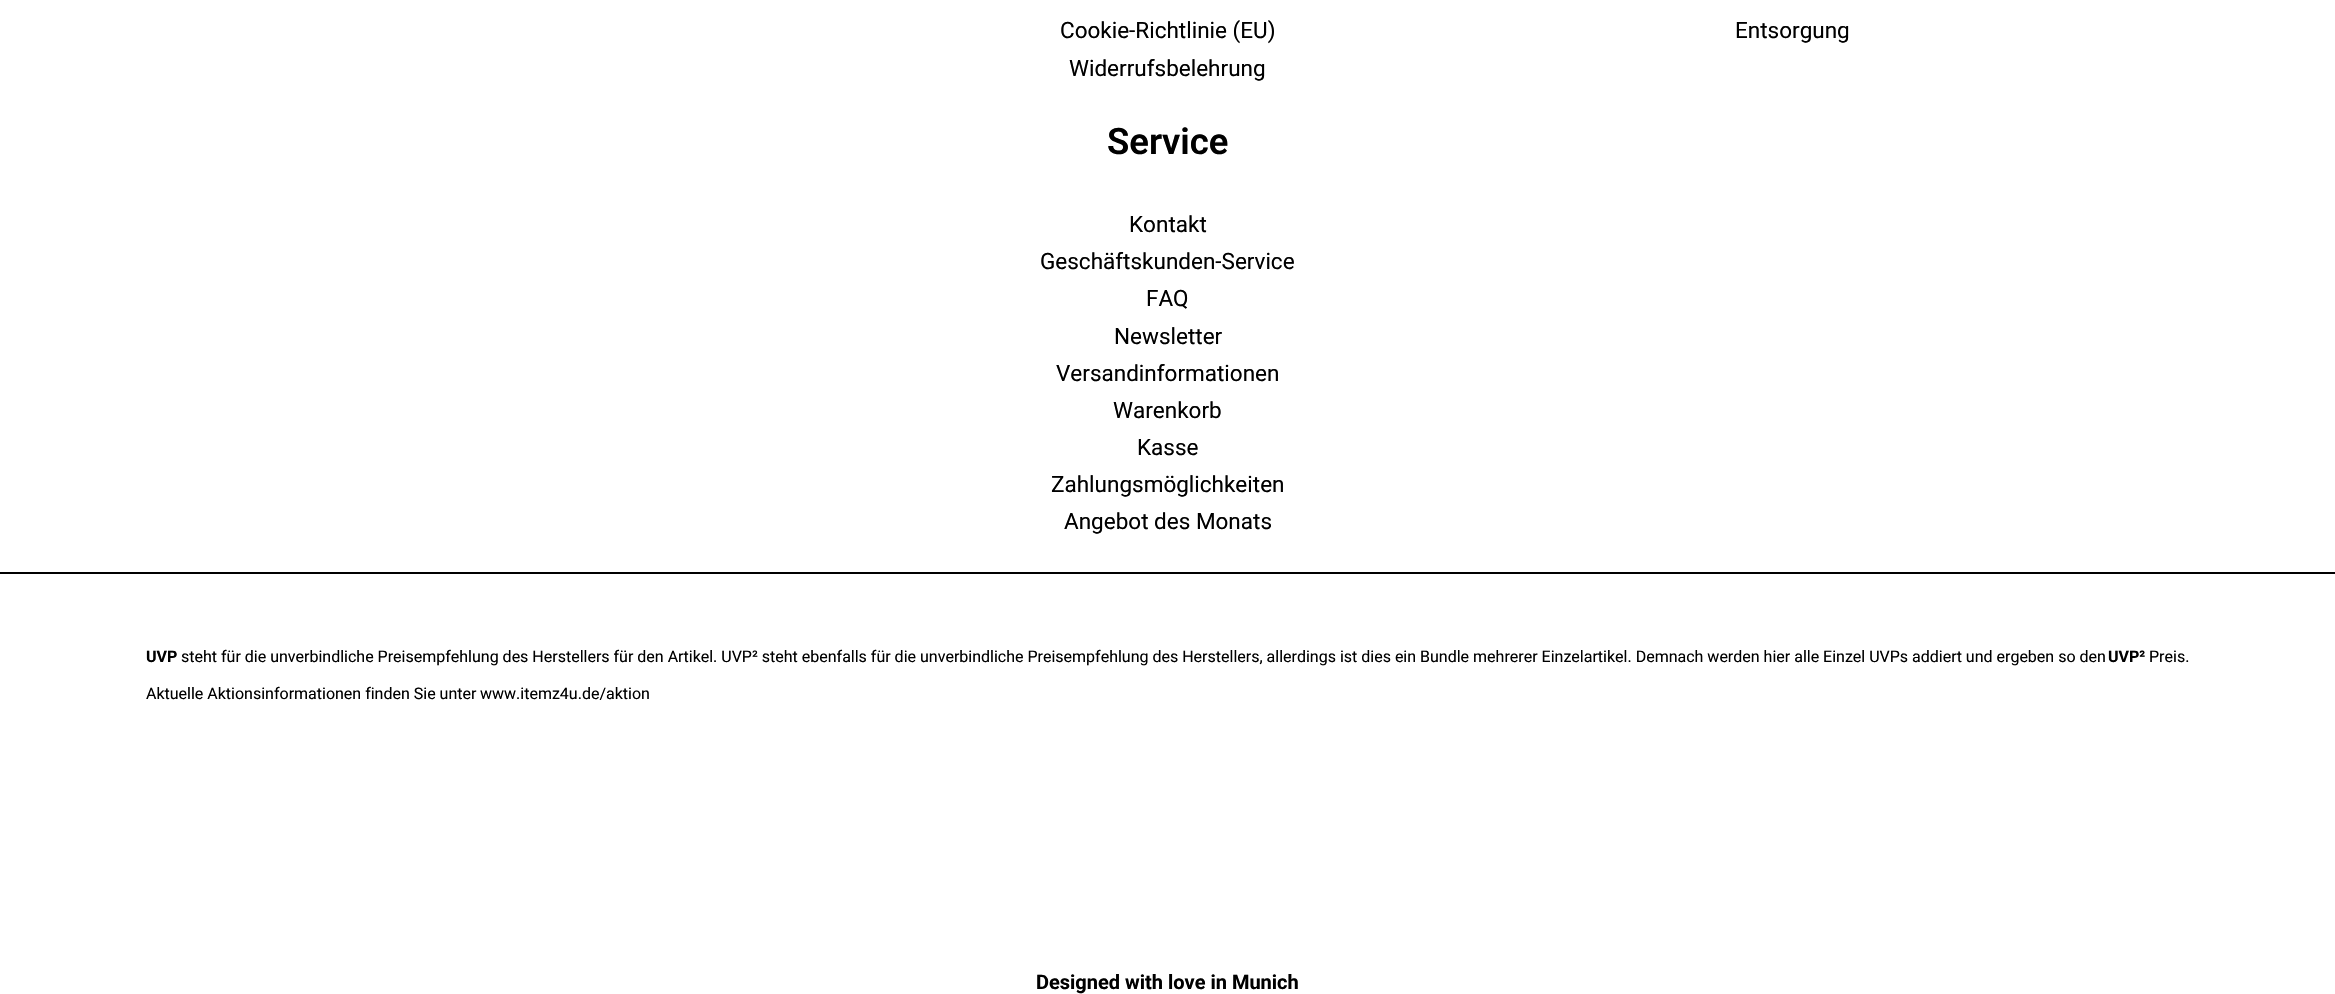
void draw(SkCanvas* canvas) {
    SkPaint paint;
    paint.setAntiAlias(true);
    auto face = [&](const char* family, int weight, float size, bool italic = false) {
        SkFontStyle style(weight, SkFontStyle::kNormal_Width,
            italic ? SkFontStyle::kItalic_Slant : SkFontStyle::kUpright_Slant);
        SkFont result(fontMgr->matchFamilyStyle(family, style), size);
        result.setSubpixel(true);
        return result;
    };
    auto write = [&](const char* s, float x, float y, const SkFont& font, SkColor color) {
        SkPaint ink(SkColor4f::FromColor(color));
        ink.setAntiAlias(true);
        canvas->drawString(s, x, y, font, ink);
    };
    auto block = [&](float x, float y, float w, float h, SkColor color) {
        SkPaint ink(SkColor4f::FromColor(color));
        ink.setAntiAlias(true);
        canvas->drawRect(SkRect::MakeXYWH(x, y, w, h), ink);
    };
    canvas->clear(SK_ColorWHITE);
    auto kFont1 = face("Roboto", 400, 22.5f);
    write("Cookie-Richtlinie (EU)", 1060, 38, kFont1, SK_ColorBLACK);
    write("Widerrufsbelehrung", 1069, 76, kFont1, SK_ColorBLACK);
    auto kFont2 = face("Roboto", 600, 36.5f);
    write("Service", 1107, 154, kFont2, SK_ColorBLACK);
    write("Kontakt", 1129, 232, kFont1, SK_ColorBLACK);
    write("Geschäftskunden-Service", 1040, 269, kFont1, SK_ColorBLACK);
    write("FAQ", 1146, 306, kFont1, SK_ColorBLACK);
    write("Newsletter", 1114, 344, kFont1, SK_ColorBLACK);
    write("Versandinformationen", 1056, 381, kFont1, SK_ColorBLACK);
    write("Warenkorb", 1113, 418, kFont1, SK_ColorBLACK);
    write("Kasse", 1137, 455, kFont1, SK_ColorBLACK);
    write("Zahlungsmöglichkeiten", 1051, 492, kFont1, SK_ColorBLACK);
    write("Angebot des Monats", 1064, 529, kFont1, SK_ColorBLACK);
    write("Entsorgung", 1735, 38, kFont1, SK_ColorBLACK);
    block(0, 572, 2335, 2, SK_ColorBLACK);
    auto kFont3 = face("Roboto", 700, 16);
    write("UVP", 146, 662, kFont3, SK_ColorBLACK);
    auto kFont4 = face("Roboto", 400, 16);
    write("steht für die unverbindliche Preisempfehlung des Herstellers für den Artikel. UVP² steht ebenfalls für die unverbindliche Preisempfehlung des Herstellers, allerdings ist dies ein Bundle mehrerer Einzelartikel. Demnach werden hier alle Einzel UVPs addiert und ergeben so den", 181, 662, kFont4, SK_ColorBLACK);
    write("UVP²", 2108, 662, kFont3, SK_ColorBLACK);
    write("Preis.", 2149, 662, kFont4, SK_ColorBLACK);
    write("Aktuelle Aktionsinformationen finden Sie unter", 146, 699, kFont4, SK_ColorBLACK);
    write("www.itemz4u.de/aktion", 480, 699, kFont4, SK_ColorBLACK);
    auto kFont5 = face("Roboto", 700, 20);
    write("Designed with love in Munich", 1036, 989, kFont5, SK_ColorBLACK);
}
